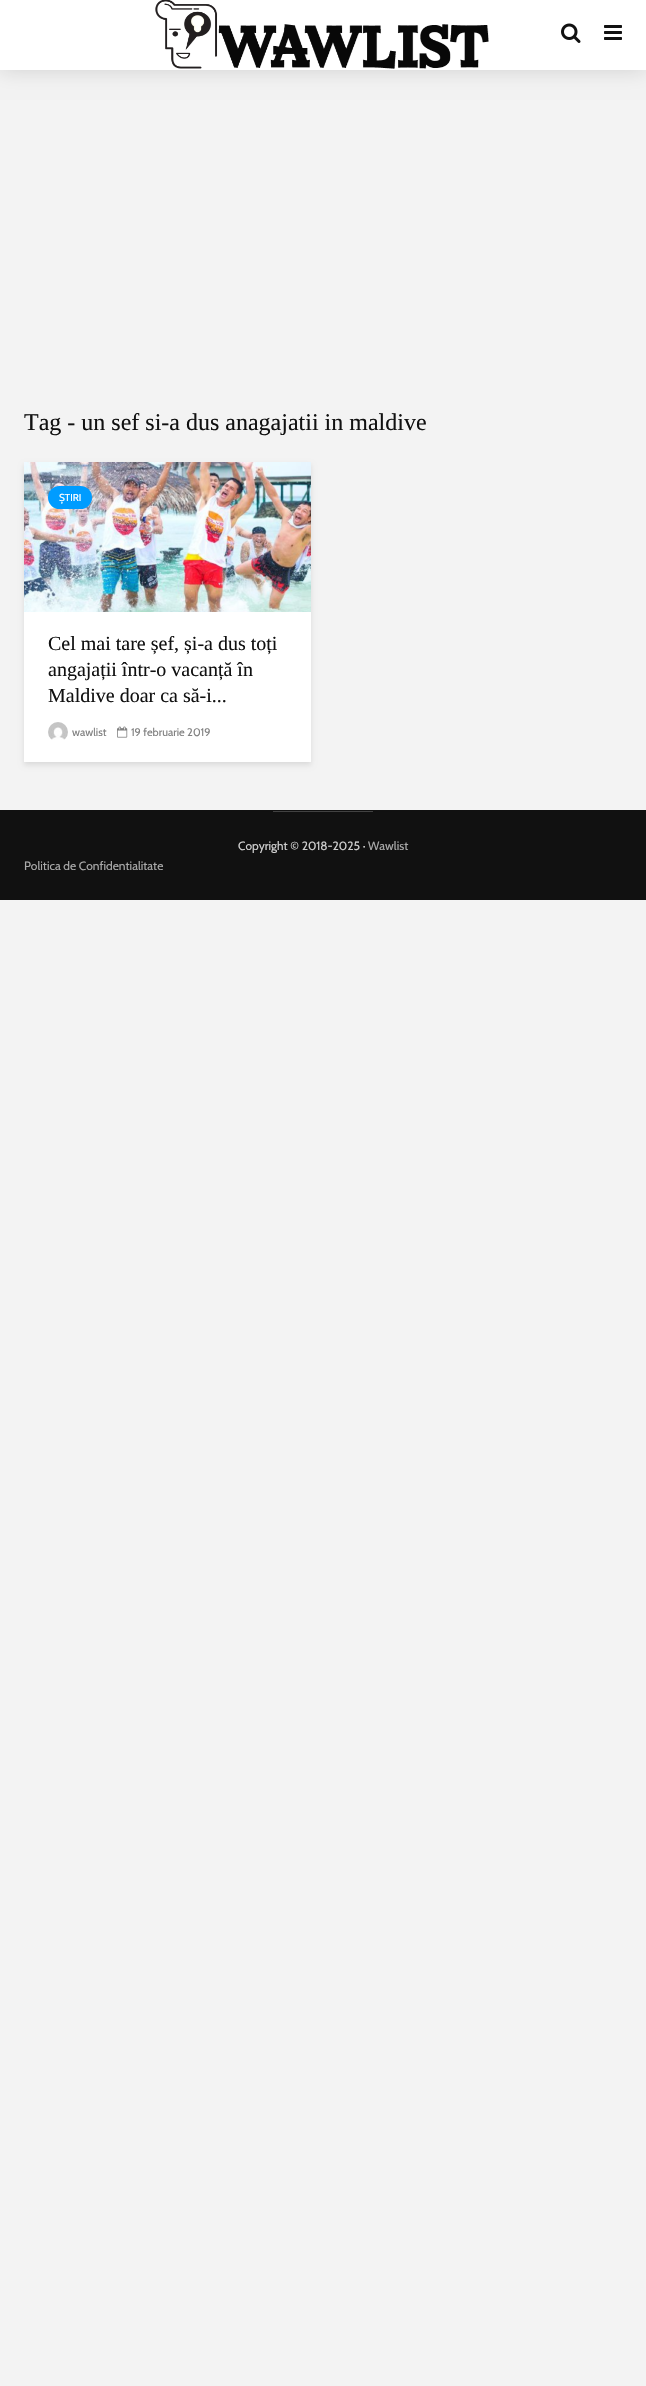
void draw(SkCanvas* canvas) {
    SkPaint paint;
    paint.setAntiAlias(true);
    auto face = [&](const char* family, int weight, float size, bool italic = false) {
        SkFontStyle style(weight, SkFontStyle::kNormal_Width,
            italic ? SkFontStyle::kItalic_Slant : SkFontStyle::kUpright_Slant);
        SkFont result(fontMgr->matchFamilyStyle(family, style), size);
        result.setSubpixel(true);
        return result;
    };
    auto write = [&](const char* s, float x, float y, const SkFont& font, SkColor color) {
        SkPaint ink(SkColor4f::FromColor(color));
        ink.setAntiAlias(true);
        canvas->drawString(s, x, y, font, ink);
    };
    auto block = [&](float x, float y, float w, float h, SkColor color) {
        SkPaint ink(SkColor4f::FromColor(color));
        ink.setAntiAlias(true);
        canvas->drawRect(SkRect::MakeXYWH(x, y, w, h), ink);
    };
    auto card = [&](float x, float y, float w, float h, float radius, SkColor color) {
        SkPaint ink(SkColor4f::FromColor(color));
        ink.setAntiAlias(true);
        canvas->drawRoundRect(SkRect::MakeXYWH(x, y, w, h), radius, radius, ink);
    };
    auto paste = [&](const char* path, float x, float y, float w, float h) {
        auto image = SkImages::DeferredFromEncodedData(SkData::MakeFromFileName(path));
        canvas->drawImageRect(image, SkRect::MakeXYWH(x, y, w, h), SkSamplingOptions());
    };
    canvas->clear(SkColorSetRGB(243, 243, 243));
    paint.setColor(SkColorSetARGB(38, 0, 0, 0));
    paint.setMaskFilter(SkMaskFilter::MakeBlur(kNormal_SkBlurStyle, 10));
    canvas->drawRect(SkRect::MakeXYWH(0, 0, 646, 70), paint);
    paint.setMaskFilter(nullptr);
    block(0, 0, 646, 70, SK_ColorWHITE);
    paste("pic1.png", 155, 0, 334, 69);
    paste("pic2.png", 561, 23, 20, 20);
    paste("pic3.png", 604, 25, 18, 15);
    auto kFont1 = face("Liberation Serif", 400, 24);
    write("Tag - un sef si-a dus anagajatii in maldive", 24, 430, kFont1, SkColorSetRGB(17, 17, 17));
    paint.setColor(SkColorSetARGB(26, 0, 1, 1));
    paint.setMaskFilter(SkMaskFilter::MakeBlur(kNormal_SkBlurStyle, 2.5f));
    canvas->drawRect(SkRect::MakeXYWH(24, 465, 287, 300), paint);
    paint.setMaskFilter(nullptr);
    block(24, 612, 287, 150, SK_ColorWHITE);
    paste("pic4.png", 24, 462, 287, 150);
    card(48, 486, 44, 23, 11.5f, SkColorSetRGB(0, 156, 255));
    auto kFont2 = face("Cabin", 400, 10);
    write("ȘTIRI", 59, 501, kFont2, SK_ColorWHITE);
    auto kFont3 = face("Liberation Serif", 400, 20);
    write("Cel mai tare șef, și-a dus toți", 48, 650, kFont3, SkColorSetRGB(17, 17, 17));
    write("angajații într-o vacanță în", 48, 676, kFont3, SkColorSetRGB(17, 17, 17));
    write("Maldive doar ca să-i...", 48, 702, kFont3, SkColorSetRGB(17, 17, 17));
    paste("pic5.png", 48, 722, 20, 18);
    auto kFont4 = face("Cabin", 400, 11);
    write("wawlist", 72, 736, kFont4, SkColorSetRGB(129, 129, 129));
    paste("pic6.png", 117, 726, 11, 12);
    write("19 februarie 2019", 131, 736, kFont4, SkColorSetRGB(129, 129, 129));
    block(0, 810, 646, 90, SkColorSetRGB(17, 17, 17));
    block(273, 811, 100, 1, SkColorSetRGB(65, 65, 65));
    auto kFont5 = face("Cabin", 400, 12);
    write("Copyright © 2018-2025 ·", 238, 850, kFont5, SkColorSetRGB(207, 207, 207));
    write("Wawlist", 368, 850, kFont5, SkColorSetRGB(169, 169, 169));
    write("Politica de Confidentialitate", 24, 870, kFont5, SkColorSetRGB(169, 169, 169));
}
